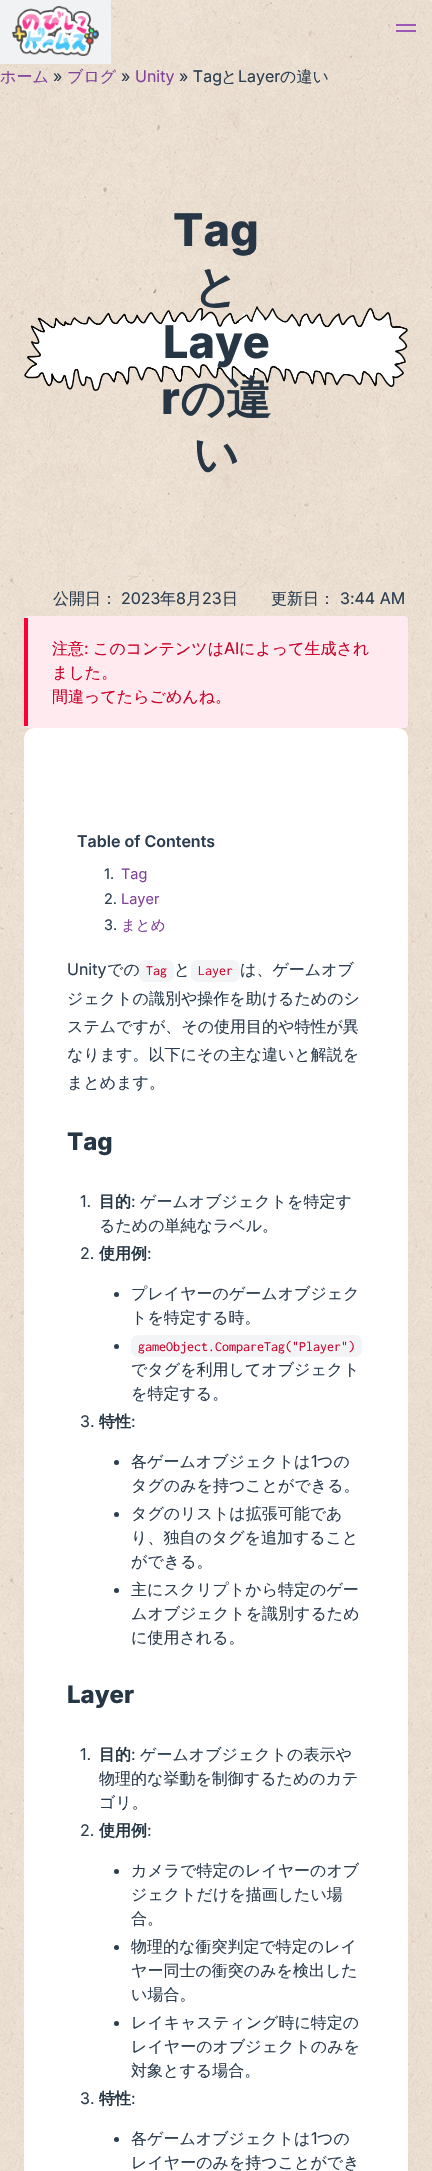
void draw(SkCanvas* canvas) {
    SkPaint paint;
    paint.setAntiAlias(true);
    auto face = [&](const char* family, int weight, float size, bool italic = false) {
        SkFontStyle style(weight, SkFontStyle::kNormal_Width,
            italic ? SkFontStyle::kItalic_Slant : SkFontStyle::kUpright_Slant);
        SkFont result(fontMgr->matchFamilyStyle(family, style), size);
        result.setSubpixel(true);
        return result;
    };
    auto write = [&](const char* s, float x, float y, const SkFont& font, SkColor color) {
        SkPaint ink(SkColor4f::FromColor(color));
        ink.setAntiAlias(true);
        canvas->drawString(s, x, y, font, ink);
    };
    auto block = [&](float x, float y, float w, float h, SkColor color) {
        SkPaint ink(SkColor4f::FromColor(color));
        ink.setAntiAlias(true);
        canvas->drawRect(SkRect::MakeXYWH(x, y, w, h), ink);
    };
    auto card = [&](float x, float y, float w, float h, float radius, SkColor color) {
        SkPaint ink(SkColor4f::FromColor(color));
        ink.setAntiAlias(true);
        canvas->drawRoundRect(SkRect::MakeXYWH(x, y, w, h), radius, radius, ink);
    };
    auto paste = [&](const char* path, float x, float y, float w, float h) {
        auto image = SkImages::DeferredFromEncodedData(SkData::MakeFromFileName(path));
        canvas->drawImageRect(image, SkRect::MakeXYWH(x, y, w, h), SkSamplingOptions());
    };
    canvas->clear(SK_ColorWHITE);
    paste("pic1.png", 0, 0, 432, 2171);
    block(0, 0, 111, 64, SkColorSetRGB(240, 242, 244));
    paste("pic2.png", 12, 6, 87, 50);
    block(396, 24, 20, 2, SkColorSetRGB(155, 88, 182));
    block(396, 30, 20, 2, SkColorSetRGB(155, 88, 182));
    auto kFont1 = face("WenQuanYi Zen Hei", 500, 16);
    write("ホーム", 0, 82, kFont1, SkColorSetRGB(129, 67, 153));
    auto kFont2 = face("Inter", 400, 16);
    write("»", 53, 82, kFont2, SkColorSetRGB(43, 61, 79));
    write("ブログ", 67, 82, kFont1, SkColorSetRGB(129, 67, 153));
    write("»", 121, 82, kFont2, SkColorSetRGB(43, 61, 79));
    write("Unity", 135, 82, kFont2, SkColorSetRGB(129, 67, 153));
    write("» Tag", 179, 82, kFont2, SkColorSetRGB(43, 61, 79));
    write("と", 221, 82, kFont1, SkColorSetRGB(43, 61, 79));
    write("Layer", 238, 82, kFont2, SkColorSetRGB(43, 61, 79));
    write("の違い", 280, 82, kFont1, SkColorSetRGB(43, 61, 79));
    paste("pic3.png", 24, 306, 384, 85);
    auto kFont3 = face("Inter", 800, 45);
    write("Tag", 173, 246, kFont3, SkColorSetRGB(38, 54, 69));
    auto kFont4 = face("WenQuanYi Zen Hei", 700, 45);
    write("と", 193, 302, kFont4, SkColorSetRGB(38, 54, 69));
    write("Laye", 163, 358, kFont3, SkColorSetRGB(38, 54, 69));
    write("r", 161, 414, kFont3, SkColorSetRGB(38, 54, 69));
    write("の違", 180, 414, kFont4, SkColorSetRGB(38, 54, 69));
    write("い", 193, 470, kFont4, SkColorSetRGB(38, 54, 69));
    write("公開日：", 53, 604, kFont1, SkColorSetRGB(43, 61, 79));
    write("2023", 121, 604, kFont2, SkColorSetRGB(43, 61, 79));
    write("年", 160, 604, kFont1, SkColorSetRGB(43, 61, 79));
    write("8", 176, 604, kFont2, SkColorSetRGB(43, 61, 79));
    write("月", 186, 604, kFont1, SkColorSetRGB(43, 61, 79));
    write("23", 202, 604, kFont2, SkColorSetRGB(43, 61, 79));
    write("日", 222, 604, kFont1, SkColorSetRGB(43, 61, 79));
    write("更新日：", 271, 604, kFont1, SkColorSetRGB(43, 61, 79));
    write("3:44 AM", 340, 604, kFont2, SkColorSetRGB(43, 61, 79));
    card(24, 616, 384, 112, 4, SkColorSetRGB(255, 235, 239));
    block(24, 618, 4, 108, SkColorSetRGB(255, 0, 51));
    write("注意", 52, 654, kFont1, SkColorSetRGB(204, 0, 41));
    write(":", 84, 654, kFont2, SkColorSetRGB(204, 0, 41));
    write("このコンテンツは", 93, 654, kFont1, SkColorSetRGB(204, 0, 41));
    write("AI", 224, 654, kFont2, SkColorSetRGB(204, 0, 41));
    write("によって生成され", 239, 654, kFont1, SkColorSetRGB(204, 0, 41));
    write("ました。", 52, 678, kFont1, SkColorSetRGB(204, 0, 41));
    write("間違ってたらごめんね。", 52, 702, kFont1, SkColorSetRGB(204, 0, 41));
    card(24, 728, 384, 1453, 10, SK_ColorWHITE);
    auto kFont5 = face("Inter", 600, 16);
    write("Table of Contents", 77, 847, kFont5, SkColorSetRGB(43, 61, 79));
    auto kFont6 = face("Inter", 400, 14.5f);
    write("1.", 104, 879, kFont6, SkColorSetRGB(43, 61, 79));
    write("Tag", 121, 879, kFont6, SkColorSetRGB(129, 67, 153));
    write("2.", 104, 904, kFont6, SkColorSetRGB(43, 61, 79));
    write("Layer", 121, 904, kFont6, SkColorSetRGB(129, 67, 153));
    write("3.", 104, 930, kFont6, SkColorSetRGB(43, 61, 79));
    auto kFont7 = face("WenQuanYi Zen Hei", 500, 14.5f);
    write("まとめ", 121, 930, kFont7, SkColorSetRGB(129, 67, 153));
    write("Unity", 67, 975, kFont2, SkColorSetRGB(43, 61, 79));
    write("での", 107, 975, kFont1, SkColorSetRGB(43, 61, 79));
    card(139, 960, 35, 22, 7, SkColorSetRGB(243, 244, 246));
    auto kFont8 = face("Inconsolata", 400, 14);
    write("Tag", 146, 975, kFont8, SkColorSetRGB(204, 0, 41));
    write("と", 174, 975, kFont1, SkColorSetRGB(43, 61, 79));
    card(191, 960, 49, 22, 7, SkColorSetRGB(243, 244, 246));
    write("Layer", 198, 975, kFont8, SkColorSetRGB(204, 0, 41));
    write("は、ゲームオブ", 240, 975, kFont1, SkColorSetRGB(43, 61, 79));
    write("ジェクトの識別や操作を助けるためのシ", 67, 1004, kFont1, SkColorSetRGB(43, 61, 79));
    write("ステムですが、その使用目的や特性が異", 67, 1032, kFont1, SkColorSetRGB(43, 61, 79));
    write("なります。以下にその主な違いと解説を", 67, 1060, kFont1, SkColorSetRGB(43, 61, 79));
    write("まとめます。", 67, 1088, kFont1, SkColorSetRGB(43, 61, 79));
    auto kFont9 = face("Inter", 800, 24);
    write("Tag", 67, 1150, kFont9, SkColorSetRGB(38, 54, 69));
    write("1.", 80, 1207, kFont2, SkColorSetRGB(43, 61, 79));
    auto kFont10 = face("WenQuanYi Zen Hei", 700, 16);
    write("目的", 99, 1207, kFont10, SkColorSetRGB(38, 54, 69));
    write(":", 131, 1207, kFont2, SkColorSetRGB(43, 61, 79));
    write("ゲームオブジェクトを特定す", 140, 1207, kFont1, SkColorSetRGB(43, 61, 79));
    write("るための単純なラベル。", 99, 1231, kFont1, SkColorSetRGB(43, 61, 79));
    write("2.", 80, 1259, kFont2, SkColorSetRGB(43, 61, 79));
    write("使用例", 99, 1259, kFont10, SkColorSetRGB(38, 54, 69));
    write(":", 147, 1259, kFont2, SkColorSetRGB(43, 61, 79));
    paint.setColor(SkColorSetRGB(43, 61, 79));
    canvas->drawCircle(116.5f, 1294.5f, 2.5f, paint);
    write("プレイヤーのゲームオブジェク", 131, 1299, kFont1, SkColorSetRGB(43, 61, 79));
    write("トを特定する時。", 131, 1323, kFont1, SkColorSetRGB(43, 61, 79));
    canvas->drawCircle(116.5f, 1346.5f, 2.5f, paint);
    card(131, 1335, 231, 22, 7, SkColorSetRGB(243, 244, 246));
    write("gameObject.CompareTag(\"Player\")", 138, 1351, kFont8, SkColorSetRGB(204, 0, 41));
    write("でタグを利用してオブジェクト", 131, 1375, kFont1, SkColorSetRGB(43, 61, 79));
    write("を特定する。", 131, 1399, kFont1, SkColorSetRGB(43, 61, 79));
    write("3.", 80, 1427, kFont2, SkColorSetRGB(43, 61, 79));
    write("特性", 99, 1427, kFont10, SkColorSetRGB(38, 54, 69));
    write(":", 131, 1427, kFont2, SkColorSetRGB(43, 61, 79));
    canvas->drawCircle(116.5f, 1462.5f, 2.5f, paint);
    write("各ゲームオブジェクトは", 131, 1467, kFont1, SkColorSetRGB(43, 61, 79));
    write("1", 311, 1467, kFont2, SkColorSetRGB(43, 61, 79));
    write("つの", 317, 1467, kFont1, SkColorSetRGB(43, 61, 79));
    write("タグのみを持つことができる。", 131, 1491, kFont1, SkColorSetRGB(43, 61, 79));
    canvas->drawCircle(116.5f, 1514.5f, 2.5f, paint);
    write("タグのリストは拡張可能であ", 131, 1519, kFont1, SkColorSetRGB(43, 61, 79));
    write("り、独自のタグを追加すること", 131, 1543, kFont1, SkColorSetRGB(43, 61, 79));
    write("ができる。", 131, 1567, kFont1, SkColorSetRGB(43, 61, 79));
    canvas->drawCircle(116.5f, 1590.5f, 2.5f, paint);
    write("主にスクリプトから特定のゲー", 131, 1595, kFont1, SkColorSetRGB(43, 61, 79));
    write("ムオブジェクトを識別するため", 131, 1619, kFont1, SkColorSetRGB(43, 61, 79));
    write("に使用される。", 131, 1643, kFont1, SkColorSetRGB(43, 61, 79));
    write("Layer", 67, 1703, kFont9, SkColorSetRGB(38, 54, 69));
    write("1.", 80, 1760, kFont2, SkColorSetRGB(43, 61, 79));
    write("目的", 99, 1760, kFont10, SkColorSetRGB(38, 54, 69));
    write(":", 131, 1760, kFont2, SkColorSetRGB(43, 61, 79));
    write("ゲームオブジェクトの表示や", 140, 1760, kFont1, SkColorSetRGB(43, 61, 79));
    write("物理的な挙動を制御するためのカテ", 99, 1784, kFont1, SkColorSetRGB(43, 61, 79));
    write("ゴリ。", 99, 1808, kFont1, SkColorSetRGB(43, 61, 79));
    write("2.", 80, 1836, kFont2, SkColorSetRGB(43, 61, 79));
    write("使用例", 99, 1836, kFont10, SkColorSetRGB(38, 54, 69));
    write(":", 147, 1836, kFont2, SkColorSetRGB(43, 61, 79));
    canvas->drawCircle(116.5f, 1871.5f, 2.5f, paint);
    write("カメラで特定のレイヤーのオブ", 131, 1876, kFont1, SkColorSetRGB(43, 61, 79));
    write("ジェクトだけを描画したい場", 131, 1900, kFont1, SkColorSetRGB(43, 61, 79));
    write("合。", 131, 1924, kFont1, SkColorSetRGB(43, 61, 79));
    canvas->drawCircle(116.5f, 1947.5f, 2.5f, paint);
    write("物理的な衝突判定で特定のレイ", 131, 1952, kFont1, SkColorSetRGB(43, 61, 79));
    write("ヤー同士の衝突のみを検出した", 131, 1976, kFont1, SkColorSetRGB(43, 61, 79));
    write("い場合。", 131, 2000, kFont1, SkColorSetRGB(43, 61, 79));
    canvas->drawCircle(116.5f, 2023.5f, 2.5f, paint);
    write("レイキャスティング時に特定の", 131, 2028, kFont1, SkColorSetRGB(43, 61, 79));
    write("レイヤーのオブジェクトのみを", 131, 2052, kFont1, SkColorSetRGB(43, 61, 79));
    write("対象とする場合。", 131, 2076, kFont1, SkColorSetRGB(43, 61, 79));
    write("3.", 80, 2104, kFont2, SkColorSetRGB(43, 61, 79));
    write("特性", 99, 2104, kFont10, SkColorSetRGB(38, 54, 69));
    write(":", 131, 2104, kFont2, SkColorSetRGB(43, 61, 79));
    canvas->drawCircle(116.5f, 2139.5f, 2.5f, paint);
    write("各ゲームオブジェクトは", 131, 2144, kFont1, SkColorSetRGB(43, 61, 79));
    write("1", 311, 2144, kFont2, SkColorSetRGB(43, 61, 79));
    write("つの", 317, 2144, kFont1, SkColorSetRGB(43, 61, 79));
    write("レイヤーのみを持つことができ", 131, 2168, kFont1, SkColorSetRGB(43, 61, 79));
}
